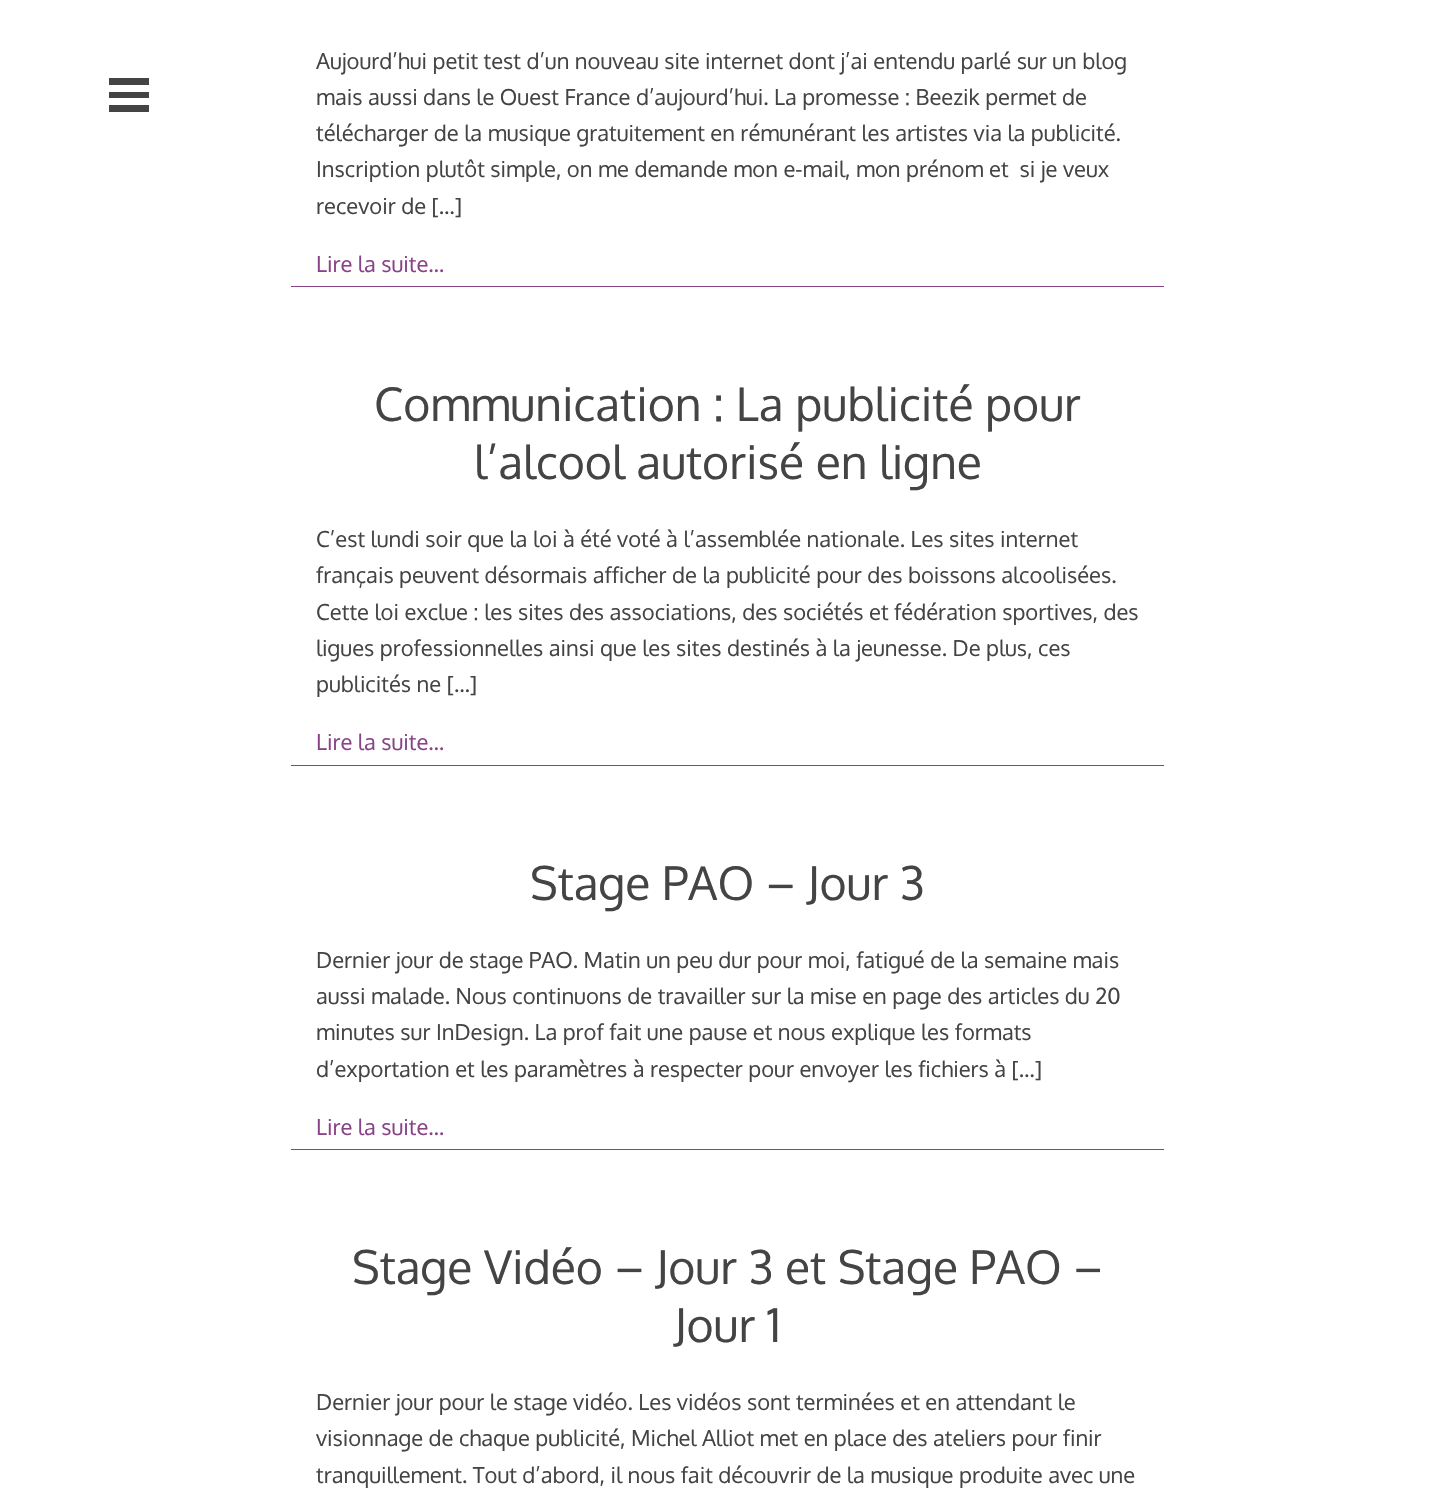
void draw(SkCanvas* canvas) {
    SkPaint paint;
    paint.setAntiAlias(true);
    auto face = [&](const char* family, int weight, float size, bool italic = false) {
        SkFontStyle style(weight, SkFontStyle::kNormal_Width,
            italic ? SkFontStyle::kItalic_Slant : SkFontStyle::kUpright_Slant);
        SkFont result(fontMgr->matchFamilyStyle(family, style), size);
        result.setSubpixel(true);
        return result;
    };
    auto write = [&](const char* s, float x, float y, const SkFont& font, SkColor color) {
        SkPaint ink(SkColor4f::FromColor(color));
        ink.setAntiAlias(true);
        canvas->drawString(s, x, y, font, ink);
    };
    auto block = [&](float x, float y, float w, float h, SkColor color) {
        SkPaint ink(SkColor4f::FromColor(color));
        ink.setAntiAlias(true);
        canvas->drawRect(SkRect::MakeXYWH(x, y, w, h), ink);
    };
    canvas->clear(SK_ColorWHITE);
    block(109, 78, 40, 7, SkColorSetRGB(68, 68, 68));
    block(109, 92, 40, 6, SkColorSetRGB(68, 68, 68));
    block(109, 105, 40, 7, SkColorSetRGB(68, 68, 68));
    auto kFont1 = face("Oxygen", 400, 22);
    write("Aujourd’hui petit test d’un nouveau site internet dont j’ai entendu parlé sur un blog", 316, 69, kFont1, SkColorSetRGB(68, 68, 68));
    write("mais aussi dans le Ouest France d’aujourd’hui. La promesse : Beezik permet de", 316, 105, kFont1, SkColorSetRGB(68, 68, 68));
    write("télécharger de la musique gratuitement en rémunérant les artistes via la publicité.", 316, 141, kFont1, SkColorSetRGB(68, 68, 68));
    write("Inscription plutôt simple, on me demande mon e-mail, mon prénom et  si je veux", 316, 177, kFont1, SkColorSetRGB(68, 68, 68));
    write("recevoir de […]", 316, 214, kFont1, SkColorSetRGB(68, 68, 68));
    block(291, 286, 873, 1, SkColorSetRGB(137, 66, 136));
    write("Lire la suite…", 316, 272, kFont1, SkColorSetRGB(137, 66, 136));
    auto kFont2 = face("Oxygen", 400, 46.25f);
    write("Communication : La publicité pour", 374, 421, kFont2, SkColorSetRGB(68, 68, 68));
    write("l’alcool autorisé en ligne", 474, 479, kFont2, SkColorSetRGB(68, 68, 68));
    write("C’est lundi soir que la loi à été voté à l’assemblée nationale. Les sites internet", 316, 547, kFont1, SkColorSetRGB(68, 68, 68));
    write("français peuvent désormais afficher de la publicité pour des boissons alcoolisées.", 316, 583, kFont1, SkColorSetRGB(68, 68, 68));
    write("Cette loi exclue : les sites des associations, des sociétés et fédération sportives, des", 316, 620, kFont1, SkColorSetRGB(68, 68, 68));
    write("ligues professionnelles ainsi que les sites destinés à la jeunesse. De plus, ces", 316, 656, kFont1, SkColorSetRGB(68, 68, 68));
    write("publicités ne […]", 316, 692, kFont1, SkColorSetRGB(68, 68, 68));
    block(291, 765, 873, 1, SkColorSetRGB(137, 66, 136));
    write("Lire la suite…", 316, 750, kFont1, SkColorSetRGB(137, 66, 136));
    write("Stage PAO – Jour 3", 530, 900, kFont2, SkColorSetRGB(68, 68, 68));
    write("Dernier jour de stage PAO. Matin un peu dur pour moi, fatigué de la semaine mais", 316, 968, kFont1, SkColorSetRGB(68, 68, 68));
    write("aussi malade. Nous continuons de travailler sur la mise en page des articles du 20", 316, 1004, kFont1, SkColorSetRGB(68, 68, 68));
    write("minutes sur InDesign. La prof fait une pause et nous explique les formats", 316, 1040, kFont1, SkColorSetRGB(68, 68, 68));
    write("d’exportation et les paramètres à respecter pour envoyer les fichiers à […]", 316, 1077, kFont1, SkColorSetRGB(68, 68, 68));
    block(291, 1149, 873, 1, SkColorSetRGB(137, 66, 136));
    write("Lire la suite…", 316, 1135, kFont1, SkColorSetRGB(137, 66, 136));
    write("Stage Vidéo – Jour 3 et Stage PAO –", 352, 1284, kFont2, SkColorSetRGB(68, 68, 68));
    write("Jour 1", 674, 1342, kFont2, SkColorSetRGB(68, 68, 68));
    write("Dernier jour pour le stage vidéo. Les vidéos sont terminées et en attendant le", 316, 1410, kFont1, SkColorSetRGB(68, 68, 68));
    write("visionnage de chaque publicité, Michel Alliot met en place des ateliers pour finir", 316, 1446, kFont1, SkColorSetRGB(68, 68, 68));
    write("tranquillement. Tout d’abord, il nous fait découvrir de la musique produite avec une", 316, 1483, kFont1, SkColorSetRGB(68, 68, 68));
}
